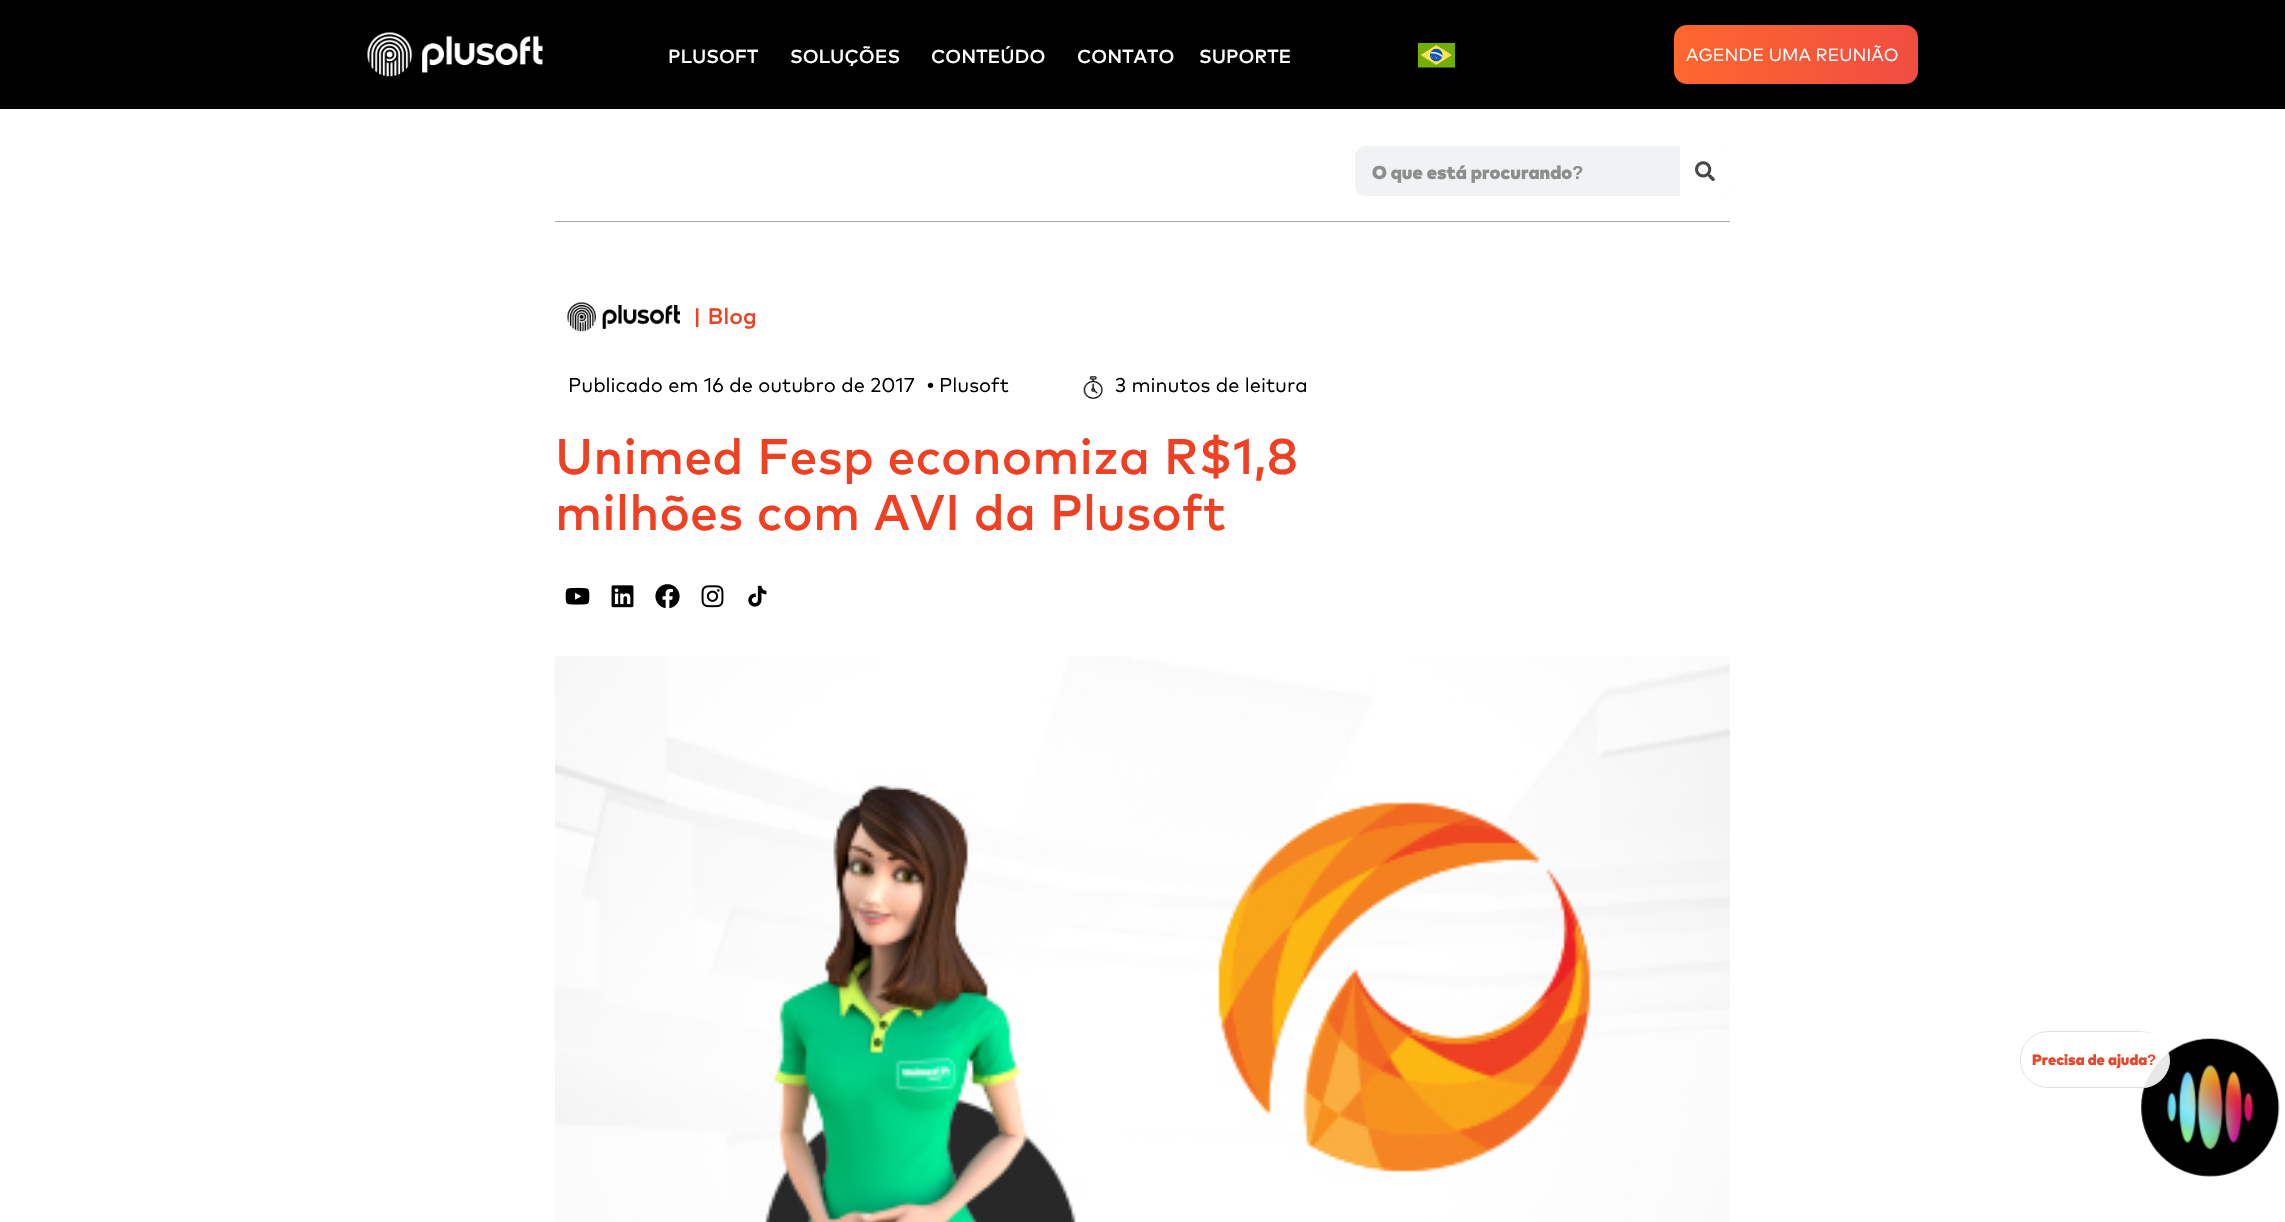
void draw(SkCanvas* canvas) {
    SkPaint paint;
    paint.setAntiAlias(true);
    auto face = [&](const char* family, int weight, float size, bool italic = false) {
        SkFontStyle style(weight, SkFontStyle::kNormal_Width,
            italic ? SkFontStyle::kItalic_Slant : SkFontStyle::kUpright_Slant);
        SkFont result(fontMgr->matchFamilyStyle(family, style), size);
        result.setSubpixel(true);
        return result;
    };
    auto write = [&](const char* s, float x, float y, const SkFont& font, SkColor color) {
        SkPaint ink(SkColor4f::FromColor(color));
        ink.setAntiAlias(true);
        canvas->drawString(s, x, y, font, ink);
    };
    auto block = [&](float x, float y, float w, float h, SkColor color) {
        SkPaint ink(SkColor4f::FromColor(color));
        ink.setAntiAlias(true);
        canvas->drawRect(SkRect::MakeXYWH(x, y, w, h), ink);
    };
    auto card = [&](float x, float y, float w, float h, float radius, SkColor color) {
        SkPaint ink(SkColor4f::FromColor(color));
        ink.setAntiAlias(true);
        canvas->drawRoundRect(SkRect::MakeXYWH(x, y, w, h), radius, radius, ink);
    };
    auto paste = [&](const char* path, float x, float y, float w, float h) {
        auto image = SkImages::DeferredFromEncodedData(SkData::MakeFromFileName(path));
        canvas->drawImageRect(image, SkRect::MakeXYWH(x, y, w, h), SkSamplingOptions());
    };
    canvas->clear(SK_ColorWHITE);
    block(0, 0, 2285, 109, SK_ColorBLACK);
    paste("pic1.png", 367, 32, 176, 45);
    auto kFont1 = face("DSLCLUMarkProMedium", 500, 18.75f);
    write("PLUSOFT", 668, 63, kFont1, SK_ColorWHITE);
    write("SOLUÇÕES", 790, 63, kFont1, SK_ColorWHITE);
    write("CONTEÚDO", 931, 63, kFont1, SK_ColorWHITE);
    write("CONTATO", 1077, 63, kFont1, SK_ColorWHITE);
    write("SUPORTE", 1199, 63, kFont1, SK_ColorWHITE);
    paste("pic2.png", 1418, 43, 37, 25);
    {
        const SkColor colors[] = {SkColorSetRGB(240, 77, 66), SkColorSetRGB(254, 103, 46)};
        const float stops[] = {0, 1};
        const SkPoint ends[] = {{1918, 54}, {1674, 54}};
        paint.setShader(SkGradientShader::MakeLinear(ends, colors, stops, 2, SkTileMode::kClamp));
        paint.setAlpha(255);
    }
    canvas->drawRoundRect(SkRect::MakeXYWH(1674, 25, 244, 59), 13, 13, paint);
    auto kFont2 = face("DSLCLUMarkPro", 400, 17.5f);
    write("AGENDE UMA REUNIÃO", 1686, 61, kFont2, SK_ColorWHITE);
    card(1355, 146, 375, 50, 10, SkColorSetRGB(241, 242, 243));
    auto kFont3 = face("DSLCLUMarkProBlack", 900, 18.75f);
    write("O que está procurando", 1372, 179, kFont3, SkColorSetRGB(140, 141, 141));
    auto kFont4 = face("Liberation Sans", 700, 18.75f);
    write("?", 1572, 179, kFont4, SkColorSetRGB(140, 141, 141));
    paint.setShader(nullptr);
    paint.setColor(SK_ColorWHITE);
    canvas->drawPath(SkPathBuilder().moveTo(1680, 146).lineTo(1720, 146).cubicTo(1725.5f, 146, 1730, 150.5f, 1730, 156).lineTo(1730, 186).cubicTo(1730, 191.5f, 1725.5f, 196, 1720, 196).lineTo(1680, 196).close().detach(), paint);
    paste("pic3.png", 1695, 161, 20, 20);
    block(555, 221, 1175, 1, SkColorSetRGB(168, 168, 168));
    paste("pic4.png", 567, 302, 113, 30);
    auto kFont5 = face("DSLCLUMarkProMedium", 500, 22.5f);
    write("| Blog", 693, 324, kFont5, SkColorSetRGB(239, 64, 35));
    auto kFont6 = face("DSLCLUMarkPro", 400, 20);
    write("Publicado em 16 de outubro de 2017", 568, 392, kFont6, SK_ColorBLACK);
    auto kFont7 = face("Liberation Sans", 400, 20);
    write("•", 927, 392, kFont7, SK_ColorBLACK);
    write("Plusoft", 939, 392, kFont6, SK_ColorBLACK);
    paste("pic5.png", 1083, 376, 20, 23);
    write("3 minutos de leitura", 1115, 392, kFont6, SK_ColorBLACK);
    auto kFont8 = face("DSLCLUMarkProMedium", 500, 50);
    write("Unimed Fesp economiza R$1,8", 555, 474, kFont8, SkColorSetRGB(239, 64, 35));
    write("milhões com AVI da Plusoft", 555, 530, kFont8, SkColorSetRGB(239, 64, 35));
    paste("pic6.png", 565, 587, 25, 18);
    paste("pic7.png", 611, 585, 23, 23);
    paste("pic8.png", 655, 584, 25, 25);
    paste("pic9.png", 701, 585, 23, 23);
    paste("pic10.png", 748, 585, 19, 22);
    paste("pic11.png", 555, 656, 1175, 566);
    paste("pic12.png", 2141, 1038, 139, 139);
    canvas->save();
    canvas->clipPath(SkPathBuilder().moveTo(1989.5f, 1031).lineTo(2138.5f, 1031).cubicTo(2156, 1031, 2170, 1045, 2170, 1062.5f).cubicTo(2170, 1080, 2156, 1094, 2138.5f, 1094).lineTo(1989.5f, 1094).cubicTo(1972, 1094, 1958, 1080, 1958, 1062.5f).cubicTo(1958, 1045, 1972, 1031, 1989.5f, 1031).close().detach(), true);
    paint.setColor(SkColorSetARGB(232, 255, 255, 255));
    canvas->drawPath(SkPathBuilder().moveTo(2048.5f, 1031).lineTo(2138.5f, 1031).cubicTo(2156, 1031, 2170, 1045, 2170, 1062.5f).lineTo(2170, 1059.5f).cubicTo(2170, 1075, 2157, 1088, 2141.5f, 1088).lineTo(2048.5f, 1088).cubicTo(2033, 1088, 2020, 1075, 2020, 1059.5f).cubicTo(2020, 1044, 2033, 1031, 2048.5f, 1031).close().detach(), paint);
    canvas->restore();
    paint.setColor(SkColorSetARGB(232, 221, 221, 221));
    canvas->drawPath(SkPathBuilder().moveTo(2048, 1031).cubicTo(2033, 1031, 2020, 1044, 2020, 1060).cubicTo(2020, 1075, 2033, 1088, 2048, 1088).lineTo(2142, 1088).cubicTo(2157, 1088, 2169, 1076, 2170, 1061).cubicTo(2170, 1056, 2169, 1052, 2167, 1048).cubicTo(2168, 1052, 2169, 1055, 2169, 1060).cubicTo(2169, 1075, 2157, 1087, 2142, 1087).lineTo(2048, 1087).cubicTo(2033, 1087, 2021, 1075, 2021, 1060).cubicTo(2021, 1044, 2033, 1032, 2048, 1032).lineTo(2142, 1032).cubicTo(2146, 1032, 2149, 1033, 2153, 1034).cubicTo(2148, 1032, 2144, 1031, 2138, 1031).close().detach(), paint);
    auto kFont9 = face("DSLCLUMarkProBlack", 900, 15);
    write("Precisa de ajuda", 2032, 1065, kFont9, SkColorSetRGB(231, 71, 43));
    auto kFont10 = face("Liberation Sans", 700, 15);
    write("?", 2147, 1065, kFont10, SkColorSetRGB(231, 71, 43));
}
